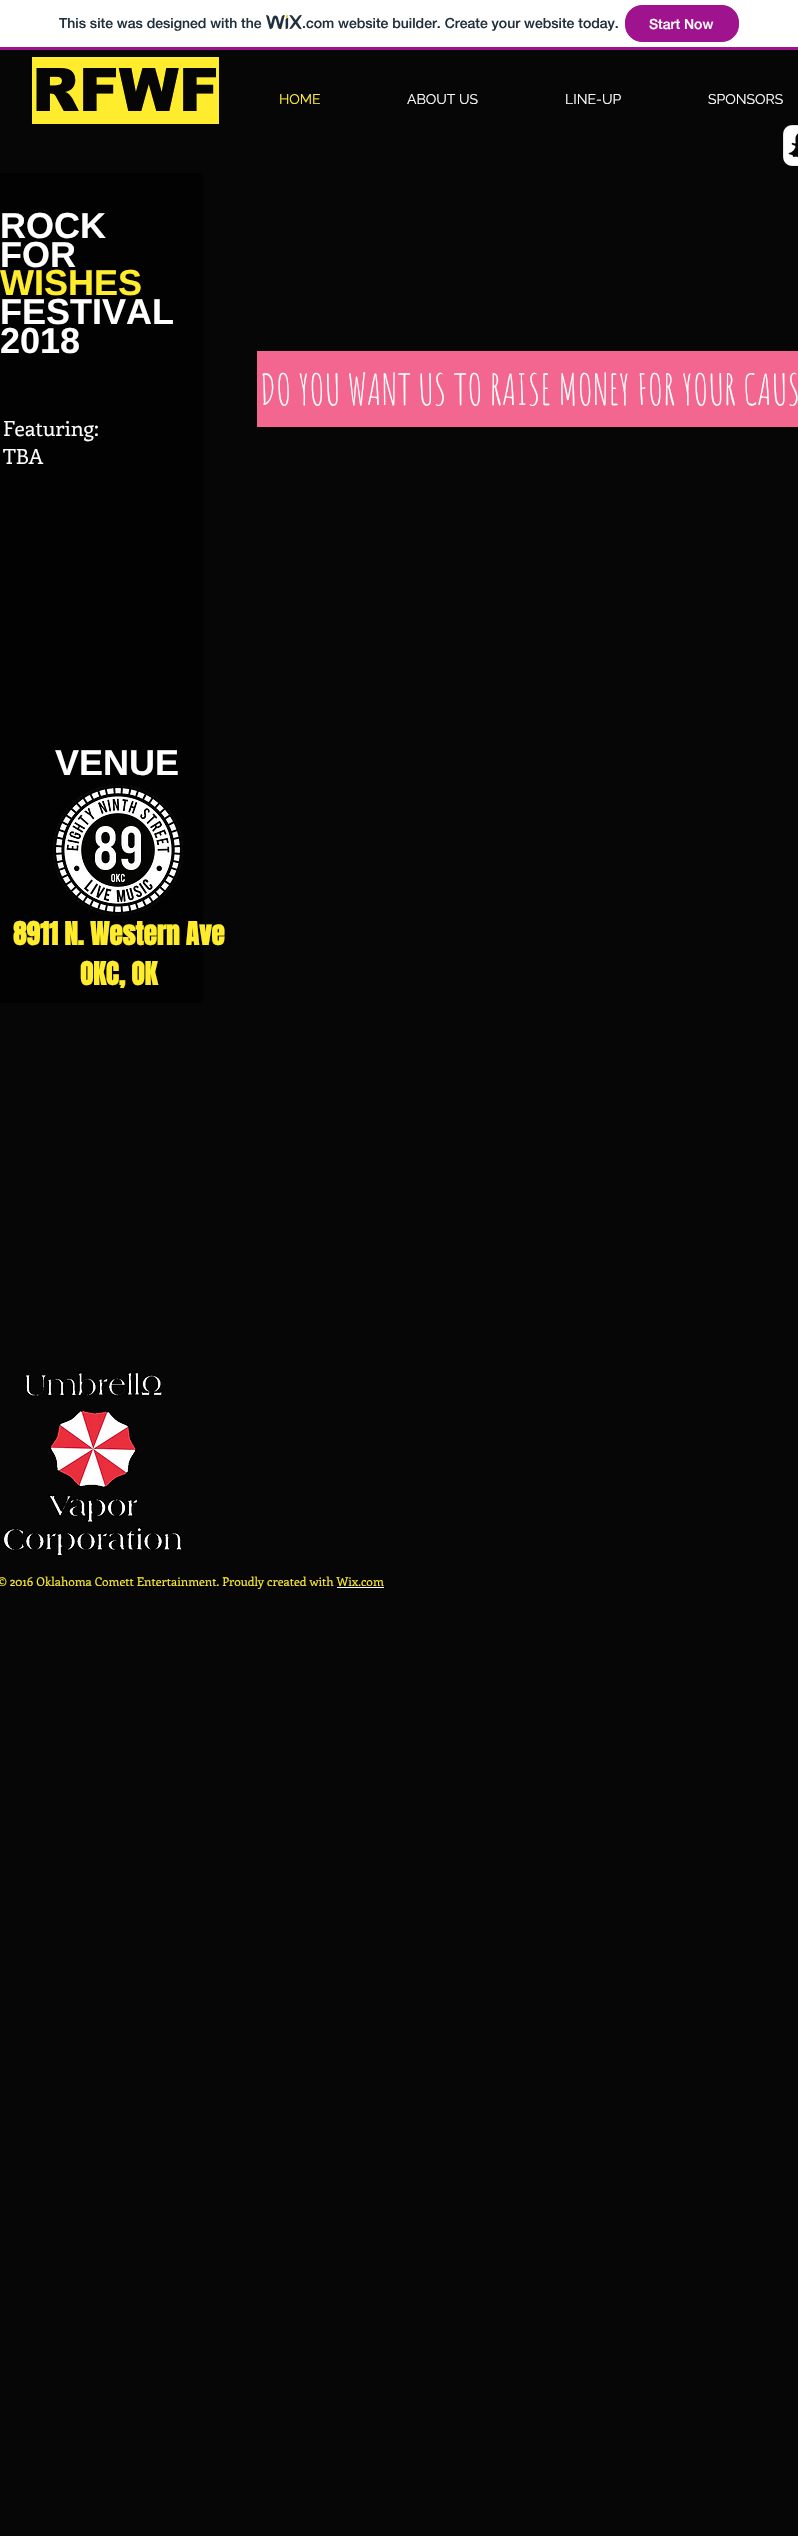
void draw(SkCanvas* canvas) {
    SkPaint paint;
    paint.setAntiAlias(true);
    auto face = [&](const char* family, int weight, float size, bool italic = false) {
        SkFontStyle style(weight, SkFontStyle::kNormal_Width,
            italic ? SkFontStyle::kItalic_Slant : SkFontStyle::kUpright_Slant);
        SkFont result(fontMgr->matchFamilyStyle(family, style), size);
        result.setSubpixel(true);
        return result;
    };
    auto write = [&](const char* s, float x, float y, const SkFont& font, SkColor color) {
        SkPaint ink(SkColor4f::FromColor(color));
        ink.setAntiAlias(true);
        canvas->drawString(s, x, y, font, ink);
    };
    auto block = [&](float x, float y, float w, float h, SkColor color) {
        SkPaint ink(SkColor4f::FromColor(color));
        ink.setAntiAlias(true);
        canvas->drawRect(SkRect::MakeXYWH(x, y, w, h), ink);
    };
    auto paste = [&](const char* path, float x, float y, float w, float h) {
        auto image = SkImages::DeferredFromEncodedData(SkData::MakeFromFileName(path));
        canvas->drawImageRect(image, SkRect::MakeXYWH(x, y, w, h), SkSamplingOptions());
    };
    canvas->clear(SK_ColorWHITE);
    block(0, 47, 798, 3, SkColorSetRGB(160, 19, 142));
    auto kFont1 = face("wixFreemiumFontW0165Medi", 500, 14);
    write("This site was designed with the", 59, 28, kFont1, SkColorSetRGB(32, 48, 60));
    paste("pic1.png", 266, 15, 36, 15);
    write(".com website builder. Create your website today.", 302, 28, kFont1, SkColorSetRGB(32, 48, 60));
    paint.setColor(SkColorSetRGB(160, 19, 142));
    canvas->drawRoundRect(SkRect::MakeXYWH(625.5f, 5.5f, 113, 36), 16.5f, 16.5f, paint);
    paint.setStyle(SkPaint::kStroke_Style);
    paint.setStrokeWidth(1);
    canvas->drawRoundRect(SkRect::MakeXYWH(625.5f, 5.5f, 113, 36), 16.5f, 16.5f, paint);
    write("Start Now", 649, 29, kFont1, SK_ColorWHITE);
    block(0, 50, 798, 2486, SkColorSetRGB(6, 6, 6));
    block(32, 57, 187, 67, SkColorSetRGB(255, 237, 45));
    auto kFont2 = face("arial", 900, 60);
    write("RFWF", 32, 111, kFont2, SkColorSetRGB(6, 6, 6));
    auto kFont3 = face("Raleway", 400, 14);
    write("HOME", 279, 104, kFont3, SkColorSetRGB(255, 237, 45));
    write("ABOUT US", 407, 104, kFont3, SK_ColorWHITE);
    write("LINE-UP", 565, 104, kFont3, SK_ColorWHITE);
    write("SPONSORS", 708, 104, kFont3, SK_ColorWHITE);
    paste("pic2.png", 783, 125, 15, 41);
    block(0, 173, 203, 830, SkColorSetRGB(2, 2, 2));
    auto kFont4 = face("Liberation Sans", 700, 36);
    write("ROCK", 0, 238, kFont4, SK_ColorWHITE);
    write("FOR", 0, 267, kFont4, SK_ColorWHITE);
    write("WISHES", 0, 295, kFont4, SkColorSetRGB(255, 237, 45));
    write("FESTIVAL", 0, 324, kFont4, SK_ColorWHITE);
    write("2018", 0, 353, kFont4, SK_ColorWHITE);
    auto kFont5 = face("Enriqueta", 400, 21);
    write("Featuring:", 3, 436, kFont5, SK_ColorWHITE);
    write("TBA", 3, 464, kFont5, SK_ColorWHITE);
    paste("pic3.png", 53, 785, 130, 130);
    block(257, 351, 541, 76, SkColorSetRGB(242, 102, 143));
    auto kFont6 = face("Amatic SC", 400, 42);
    write("DO YOU WANT US TO RAISE MONEY FOR YOUR CAUS", 260, 405, kFont6, SK_ColorWHITE);
    write("VENUE", 55, 775, kFont4, SK_ColorWHITE);
    auto kFont7 = face("Anton", 700, 27);
    write("8911 N. Western Ave", 13, 945, kFont7, SkColorSetRGB(255, 237, 45));
    write("OKC, OK", 80, 985, kFont7, SkColorSetRGB(255, 237, 45));
    paste("pic4.png", 2, 1372, 181, 184);
    auto kFont8 = face("Enriqueta", 400, 12);
    write("© 2016 Oklahoma Comett Entertainment. Proudly created with Wix.com", -3, 1586, kFont8, SkColorSetRGB(255, 237, 45));
    block(337, 1587, 47, 1, SK_ColorWHITE);
}
